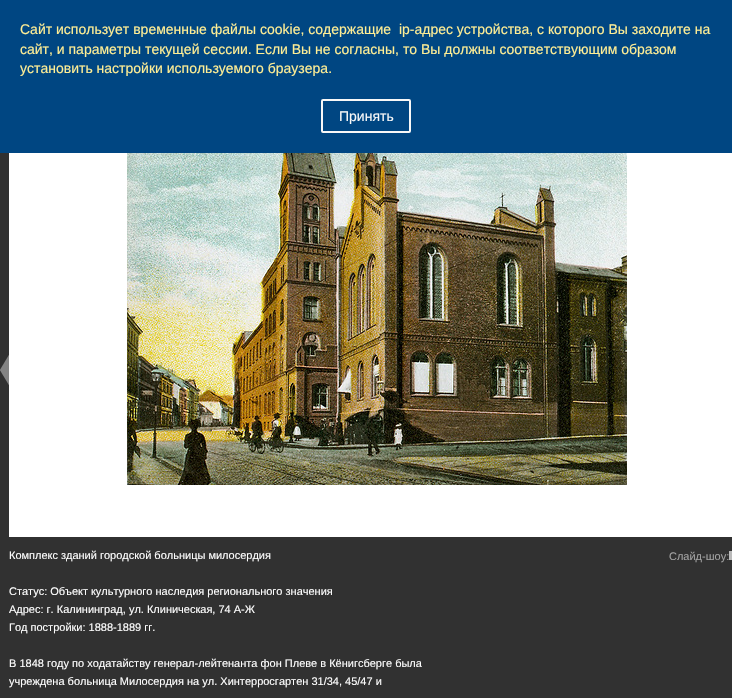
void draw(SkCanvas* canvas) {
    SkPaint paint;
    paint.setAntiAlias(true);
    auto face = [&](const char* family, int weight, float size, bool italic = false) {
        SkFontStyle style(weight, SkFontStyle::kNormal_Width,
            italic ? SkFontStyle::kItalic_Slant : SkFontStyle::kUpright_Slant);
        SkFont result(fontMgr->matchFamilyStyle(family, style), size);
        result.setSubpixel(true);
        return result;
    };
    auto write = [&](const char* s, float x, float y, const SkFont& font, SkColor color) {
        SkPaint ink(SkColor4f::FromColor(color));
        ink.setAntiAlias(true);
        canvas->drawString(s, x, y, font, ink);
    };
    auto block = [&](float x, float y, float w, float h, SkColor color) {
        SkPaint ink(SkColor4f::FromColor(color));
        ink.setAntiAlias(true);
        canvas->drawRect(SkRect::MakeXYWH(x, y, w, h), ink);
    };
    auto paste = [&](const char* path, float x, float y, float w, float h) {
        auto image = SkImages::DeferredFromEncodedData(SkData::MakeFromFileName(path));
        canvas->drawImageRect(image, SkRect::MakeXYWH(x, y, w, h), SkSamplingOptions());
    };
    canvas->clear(SkColorSetRGB(49, 49, 49));
    block(0, 0, 732, 153, SkColorSetRGB(0, 70, 130));
    auto kFont1 = face("Liberation Sans", 400, 14);
    write("Сайт использует временные файлы cookie, содержащие  ip-адрес устройства, с которого Вы заходите на", 20, 34, kFont1, SkColorSetRGB(255, 238, 149));
    write("сайт, и параметры текущей сессии. Если Вы не согласны, то Вы должны соответствующим образом", 20, 54, kFont1, SkColorSetRGB(255, 238, 149));
    write("установить настройки используемого браузера.", 20, 73, kFont1, SkColorSetRGB(255, 238, 149));
    paint.setStyle(SkPaint::kStroke_Style);
    paint.setStrokeWidth(2);
    paint.setColor(SkColorSetRGB(248, 248, 248));
    canvas->drawRoundRect(SkRect::MakeXYWH(322, 100, 88, 32), 1, 1, paint);
    write("Принять", 339, 121, kFont1, SkColorSetRGB(248, 248, 248));
    paste("pic1.png", 0, 355, 9, 30);
    block(9, 153, 723, 384, SK_ColorWHITE);
    paste("pic2.png", 127, 153, 500, 332);
    auto kFont2 = face("Liberation Sans", 400, 11);
    write("Комплекс зданий городской больницы милосердия", 9, 559, kFont2, SK_ColorWHITE);
    write("Статус: Объект культурного наследия регионального значения", 9, 595, kFont2, SK_ColorWHITE);
    write("Адрес: г. Калининград, ул. Клиническая, 74 А-Ж", 9, 613, kFont2, SK_ColorWHITE);
    write("Год постройки: 1888-1889 гг.", 9, 631, kFont2, SK_ColorWHITE);
    write("В 1848 году по ходатайству генерал-лейтенанта фон Плеве в Кёнигсберге была", 9, 667, kFont2, SK_ColorWHITE);
    write("учреждена больница Милосердия на ул. Хинтерросгартен 31/34, 45/47 и", 9, 685, kFont2, SK_ColorWHITE);
    write("Слайд-шоу:", 669, 560, kFont2, SkColorSetRGB(162, 162, 162));
    block(729, 551, 3, 9, SkColorSetRGB(186, 186, 186));
}
